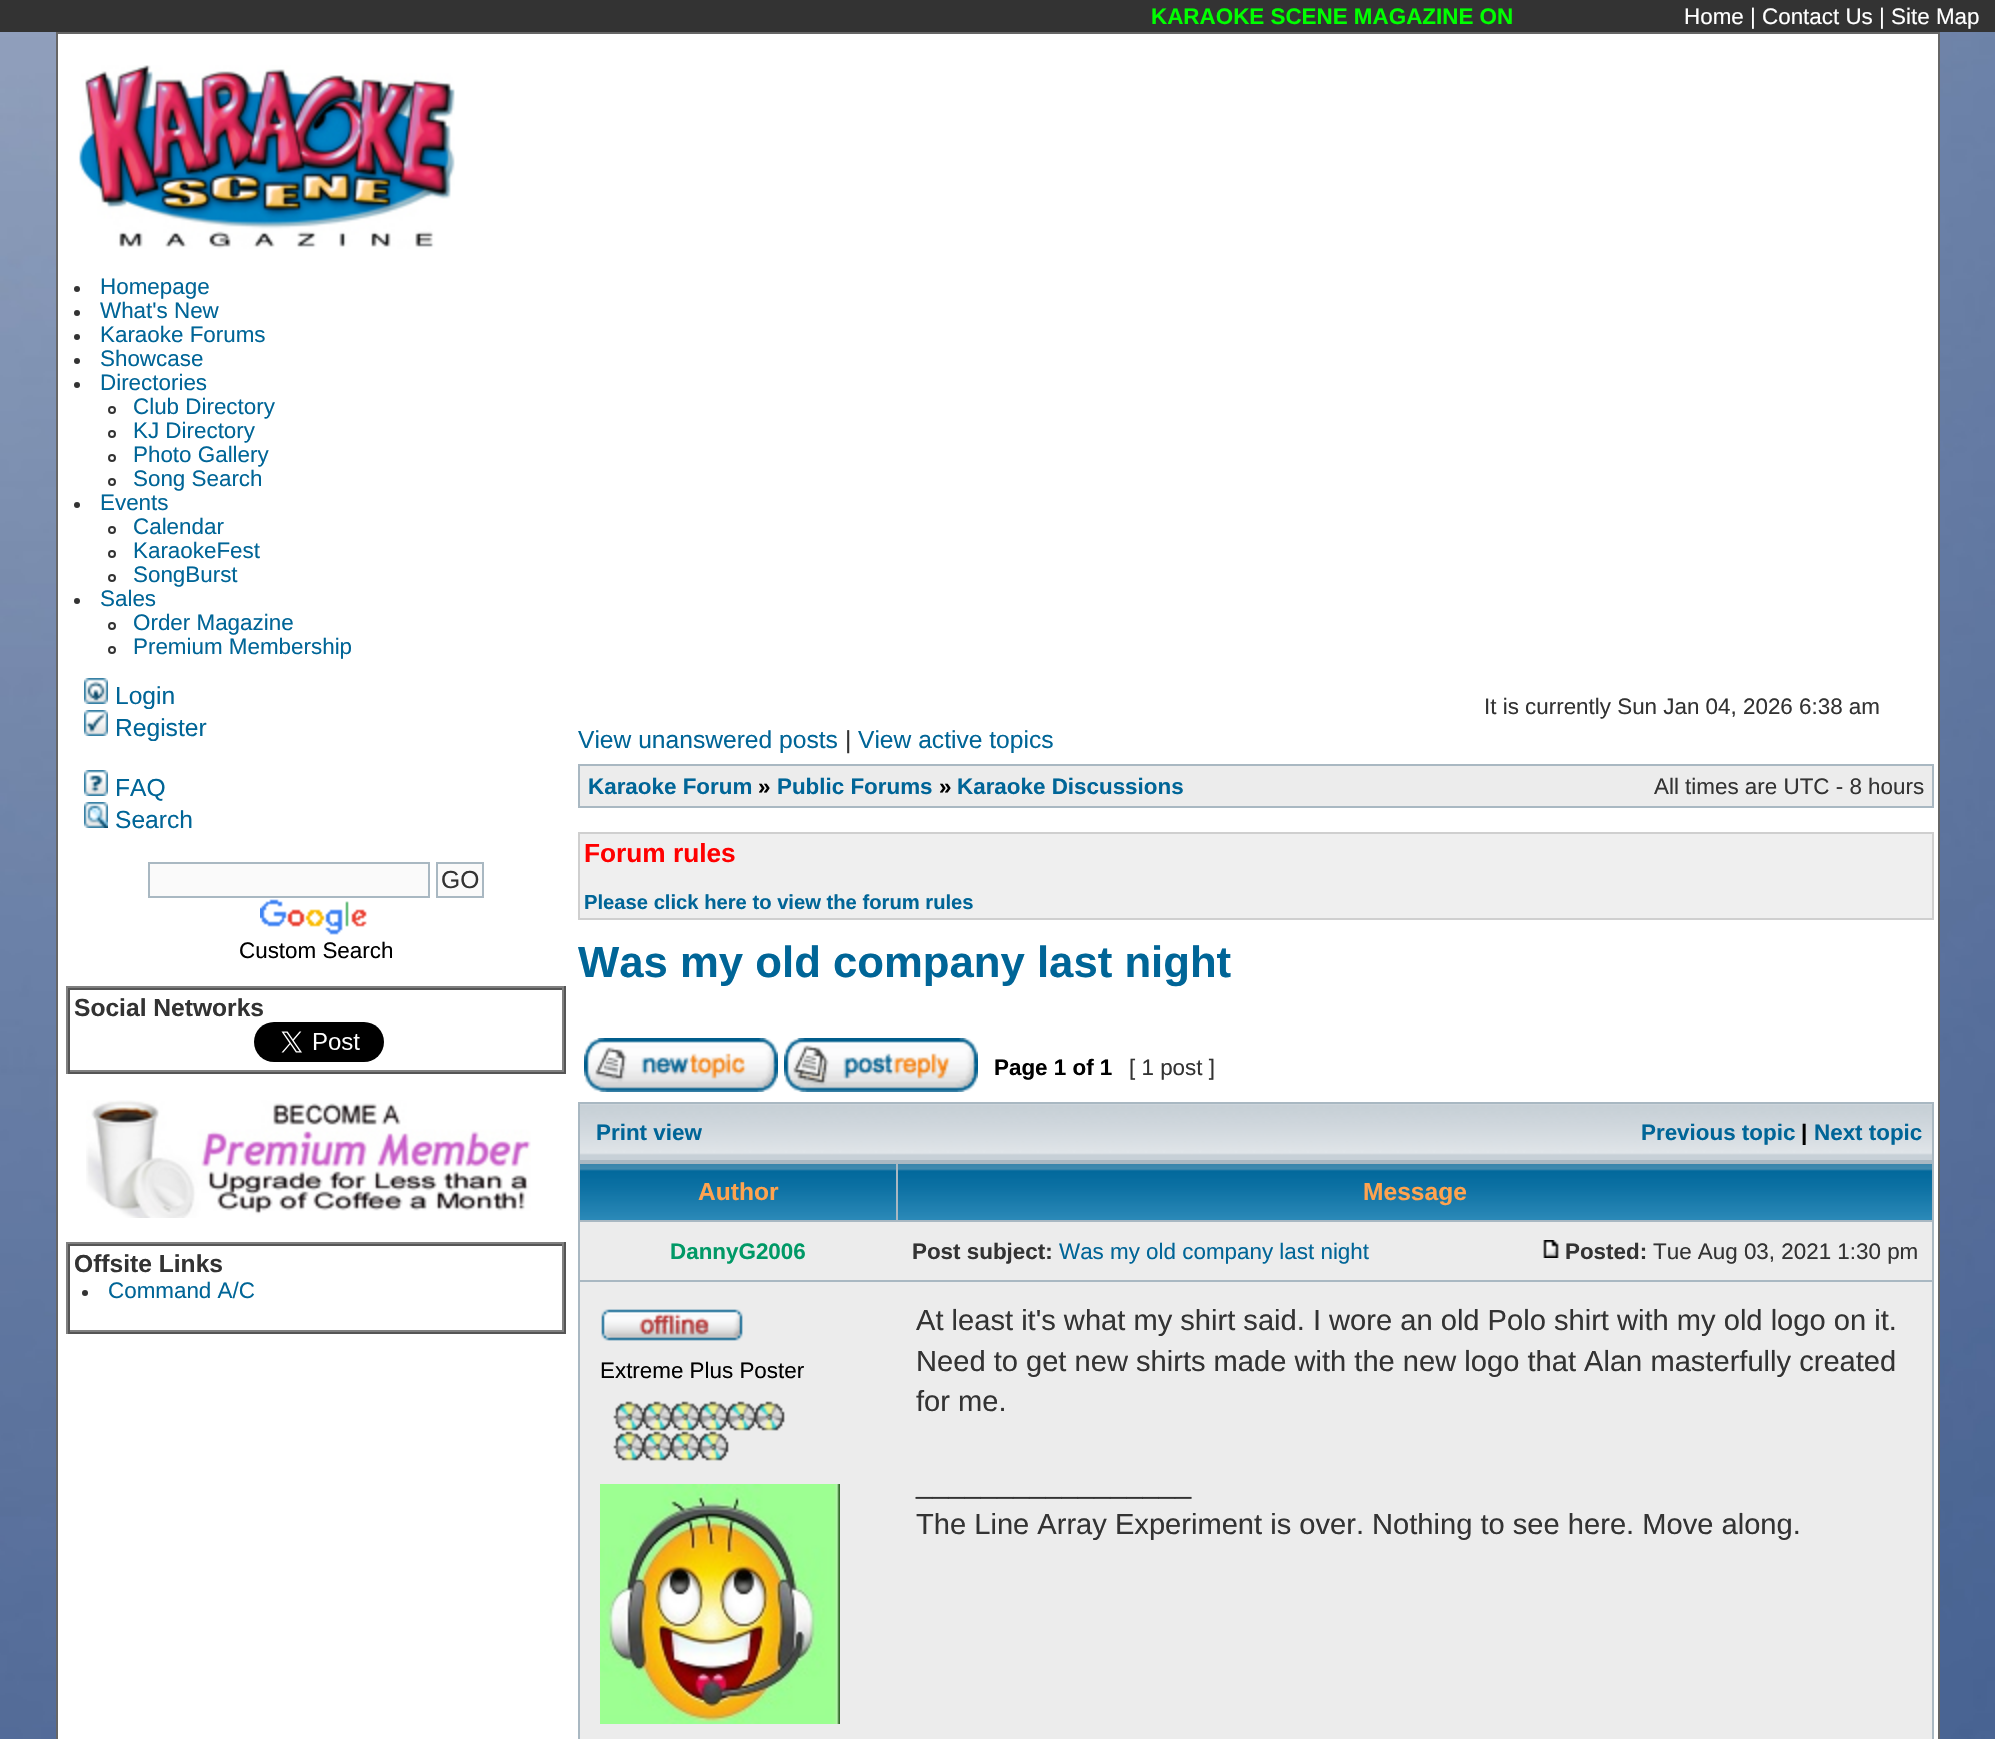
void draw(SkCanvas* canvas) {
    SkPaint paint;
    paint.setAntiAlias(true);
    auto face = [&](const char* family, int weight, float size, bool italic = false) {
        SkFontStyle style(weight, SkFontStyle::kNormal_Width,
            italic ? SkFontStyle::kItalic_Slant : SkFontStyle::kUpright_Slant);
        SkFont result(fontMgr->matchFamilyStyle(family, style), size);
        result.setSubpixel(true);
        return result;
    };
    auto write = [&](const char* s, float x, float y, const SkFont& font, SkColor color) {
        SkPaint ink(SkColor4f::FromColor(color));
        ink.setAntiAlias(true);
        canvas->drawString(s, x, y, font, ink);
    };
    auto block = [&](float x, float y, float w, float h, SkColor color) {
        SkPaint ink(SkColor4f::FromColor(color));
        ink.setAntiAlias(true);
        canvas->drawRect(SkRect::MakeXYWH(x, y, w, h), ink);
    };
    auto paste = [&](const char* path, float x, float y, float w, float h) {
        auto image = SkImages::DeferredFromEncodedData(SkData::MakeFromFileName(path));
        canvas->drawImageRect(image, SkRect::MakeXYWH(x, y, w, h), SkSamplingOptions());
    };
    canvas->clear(SK_ColorWHITE);
    paste("pic1.png", 0, 32, 1995, 1707);
    block(0, 0, 1995, 32, SkColorSetRGB(51, 51, 51));
    auto kFont1 = face("Liberation Sans", 700, 22.4f);
    write("KARAOKE SCENE MAGAZINE ON", 1151, 24, kFont1, SkColorSetRGB(0, 255, 0));
    auto kFont2 = face("Liberation Sans", 400, 22.4f);
    write("Home | Contact Us | Site Map", 1684, 24, kFont2, SK_ColorWHITE);
    paint.setStyle(SkPaint::kStroke_Style);
    paint.setStrokeWidth(2);
    paint.setColor(SkColorSetRGB(102, 102, 102));
    canvas->drawRect(SkRect::MakeXYWH(57, 33, 1882, 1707), paint);
    block(58, 34, 1880, 1705, SK_ColorWHITE);
    paste("pic2.png", 78, 65, 377, 184);
    paint.setStyle(SkPaint::kFill_Style);
    paint.setColor(SkColorSetRGB(51, 51, 51));
    canvas->drawCircle(77, 289, 3, paint);
    write("Homepage", 100, 294, kFont2, SkColorSetRGB(0, 101, 151));
    canvas->drawCircle(77, 313, 3, paint);
    write("What's New", 100, 318, kFont2, SkColorSetRGB(0, 101, 151));
    canvas->drawCircle(77, 337, 3, paint);
    write("Karaoke Forums", 100, 342, kFont2, SkColorSetRGB(0, 101, 151));
    canvas->drawCircle(77, 361, 3, paint);
    write("Showcase", 100, 366, kFont2, SkColorSetRGB(0, 101, 151));
    canvas->drawCircle(77, 385, 3, paint);
    write("Directories", 100, 390, kFont2, SkColorSetRGB(0, 101, 151));
    paint.setStyle(SkPaint::kStroke_Style);
    canvas->drawCircle(112, 410, 3, paint);
    write("Club Directory", 133, 414, kFont2, SkColorSetRGB(0, 101, 151));
    canvas->drawCircle(112, 434, 3, paint);
    write("KJ Directory", 133, 438, kFont2, SkColorSetRGB(0, 101, 151));
    canvas->drawCircle(112, 458, 3, paint);
    write("Photo Gallery", 133, 462, kFont2, SkColorSetRGB(0, 101, 151));
    canvas->drawCircle(112, 482, 3, paint);
    write("Song Search", 133, 486, kFont2, SkColorSetRGB(0, 101, 151));
    paint.setStyle(SkPaint::kFill_Style);
    canvas->drawCircle(77, 505, 3, paint);
    write("Events", 100, 510, kFont2, SkColorSetRGB(0, 101, 151));
    paint.setStyle(SkPaint::kStroke_Style);
    canvas->drawCircle(112, 530, 3, paint);
    write("Calendar", 133, 534, kFont2, SkColorSetRGB(0, 101, 151));
    canvas->drawCircle(112, 554, 3, paint);
    write("KaraokeFest", 133, 558, kFont2, SkColorSetRGB(0, 101, 151));
    canvas->drawCircle(112, 578, 3, paint);
    write("SongBurst", 133, 582, kFont2, SkColorSetRGB(0, 101, 151));
    paint.setStyle(SkPaint::kFill_Style);
    canvas->drawCircle(77, 601, 3, paint);
    write("Sales", 100, 606, kFont2, SkColorSetRGB(0, 101, 151));
    paint.setStyle(SkPaint::kStroke_Style);
    canvas->drawCircle(112, 626, 3, paint);
    write("Order Magazine", 133, 630, kFont2, SkColorSetRGB(0, 101, 151));
    canvas->drawCircle(112, 650, 3, paint);
    write("Premium Membership", 133, 654, kFont2, SkColorSetRGB(0, 101, 151));
    paste("pic3.png", 84, 678, 24, 26);
    auto kFont3 = face("Liberation Sans", 400, 24.6f);
    write("Login", 115, 704, kFont3, SkColorSetRGB(0, 101, 151));
    paste("pic4.png", 84, 710, 24, 26);
    write("Register", 115, 736, kFont3, SkColorSetRGB(0, 101, 151));
    paste("pic5.png", 84, 770, 24, 26);
    write("FAQ", 115, 796, kFont3, SkColorSetRGB(0, 101, 151));
    paste("pic6.png", 84, 802, 24, 26);
    write("Search", 115, 828, kFont3, SkColorSetRGB(0, 101, 151));
    paint.setStyle(SkPaint::kFill_Style);
    paint.setColor(SkColorSetRGB(250, 250, 250));
    canvas->drawRect(SkRect::MakeXYWH(149, 863, 280, 34), paint);
    paint.setStyle(SkPaint::kStroke_Style);
    paint.setColor(SkColorSetRGB(169, 184, 194));
    canvas->drawRect(SkRect::MakeXYWH(149, 863, 280, 34), paint);
    paint.setStyle(SkPaint::kFill_Style);
    paint.setColor(SkColorSetRGB(250, 250, 250));
    canvas->drawRect(SkRect::MakeXYWH(437, 863, 46, 34), paint);
    paint.setStyle(SkPaint::kStroke_Style);
    paint.setColor(SkColorSetRGB(169, 184, 194));
    canvas->drawRect(SkRect::MakeXYWH(437, 863, 46, 34), paint);
    write("GO", 441, 888, kFont3, SkColorSetRGB(51, 51, 51));
    paste("pic7.png", 260, 899, 107, 36);
    write("Custom Search", 239, 958, kFont2, SK_ColorBLACK);
    block(66, 986, 500, 2, SkColorSetRGB(128, 128, 128));
    block(564, 986, 2, 88, SkColorSetRGB(85, 85, 85));
    block(66, 1072, 500, 2, SkColorSetRGB(85, 85, 85));
    block(66, 986, 2, 88, SkColorSetRGB(128, 128, 128));
    block(68, 988, 496, 2, SkColorSetRGB(85, 85, 85));
    block(562, 988, 2, 84, SkColorSetRGB(128, 128, 128));
    block(68, 1070, 496, 2, SkColorSetRGB(128, 128, 128));
    block(68, 988, 2, 84, SkColorSetRGB(85, 85, 85));
    auto kFont4 = face("Liberation Sans", 700, 24.6f);
    write("Social Networks", 74, 1016, kFont4, SkColorSetRGB(51, 51, 51));
    paste("pic8.png", 254, 1022, 130, 40);
    paste("pic9.png", 86, 1100, 445, 118);
    block(66, 1242, 500, 2, SkColorSetRGB(128, 128, 128));
    block(564, 1242, 2, 92, SkColorSetRGB(85, 85, 85));
    block(66, 1332, 500, 2, SkColorSetRGB(85, 85, 85));
    block(66, 1242, 2, 92, SkColorSetRGB(128, 128, 128));
    block(68, 1244, 496, 2, SkColorSetRGB(85, 85, 85));
    block(562, 1244, 2, 88, SkColorSetRGB(128, 128, 128));
    block(68, 1330, 496, 2, SkColorSetRGB(128, 128, 128));
    block(68, 1244, 2, 88, SkColorSetRGB(85, 85, 85));
    write("Offsite Links", 74, 1272, kFont4, SkColorSetRGB(51, 51, 51));
    paint.setStyle(SkPaint::kFill_Style);
    paint.setColor(SkColorSetRGB(51, 51, 51));
    canvas->drawCircle(85, 1293, 3, paint);
    write("Command A/C", 108, 1298, kFont2, SkColorSetRGB(0, 101, 151));
    write("It is currently Sun Jan 04, 2026 6:38 am", 1484, 714, kFont2, SkColorSetRGB(51, 51, 51));
    write("View unanswered posts", 578, 748, kFont3, SkColorSetRGB(0, 101, 151));
    write("|", 845, 748, kFont3, SkColorSetRGB(51, 51, 51));
    write("View active topics", 858, 748, kFont3, SkColorSetRGB(0, 101, 151));
    block(578, 764, 1356, 44, SkColorSetRGB(169, 184, 194));
    block(580, 766, 1352, 40, SkColorSetRGB(236, 236, 236));
    write("Karaoke Forum", 588, 794, kFont1, SkColorSetRGB(0, 101, 151));
    write("»", 758, 794, kFont1, SK_ColorBLACK);
    write("Public Forums", 777, 794, kFont1, SkColorSetRGB(0, 101, 151));
    write("»", 939, 794, kFont1, SK_ColorBLACK);
    write("Karaoke Discussions", 957, 794, kFont1, SkColorSetRGB(0, 101, 151));
    write("All times are UTC - 8 hours", 1654, 794, kFont2, SkColorSetRGB(51, 51, 51));
    paint.setColor(SkColorSetRGB(239, 239, 239));
    canvas->drawRect(SkRect::MakeXYWH(579, 833, 1354, 86), paint);
    paint.setStyle(SkPaint::kStroke_Style);
    paint.setColor(SkColorSetRGB(207, 207, 207));
    canvas->drawRect(SkRect::MakeXYWH(579, 833, 1354, 86), paint);
    auto kFont5 = face("Liberation Sans", 700, 26.25f);
    write("Forum rules", 584, 862, kFont5, SkColorSetRGB(255, 0, 0));
    auto kFont6 = face("Liberation Sans", 700, 20.2f);
    write("Please click here to view the forum rules", 584, 909, kFont6, SkColorSetRGB(0, 101, 151));
    auto kFont7 = face("Liberation Sans", 700, 43.7f);
    write("Was my old company last night", 578, 977, kFont7, SkColorSetRGB(0, 101, 151));
    paste("pic10.png", 584, 1038, 194, 54);
    paste("pic11.png", 784, 1038, 194, 54);
    write("Page 1 of 1", 994, 1075, kFont1, SK_ColorBLACK);
    write("[ 1 post ]", 1129, 1075, kFont2, SkColorSetRGB(51, 51, 51));
    block(578, 1102, 1356, 637, SkColorSetRGB(169, 184, 194));
    block(580, 1155, 1352, 5, SkColorSetRGB(199, 208, 215));
    paste("pic12.png", 580, 1104, 1352, 51);
    write("Print view", 596, 1140, kFont1, SkColorSetRGB(0, 101, 151));
    write("Previous topic", 1641, 1140, kFont1, SkColorSetRGB(0, 101, 151));
    write("|", 1801, 1140, kFont1, SK_ColorBLACK);
    write("Next topic", 1814, 1140, kFont1, SkColorSetRGB(0, 101, 151));
    paste("pic13.png", 580, 1164, 316, 56);
    write("Author", 698, 1200, kFont4, SkColorSetRGB(255, 163, 79));
    paste("pic14.png", 898, 1164, 1034, 56);
    write("Message", 1363, 1200, kFont4, SkColorSetRGB(255, 163, 79));
    block(580, 1222, 1352, 58, SkColorSetRGB(236, 236, 236));
    write("DannyG2006", 670, 1259, kFont1, SkColorSetRGB(0, 153, 102));
    write("Post subject:", 912, 1259, kFont1, SkColorSetRGB(51, 51, 51));
    write("Was my old company last night", 1059, 1259, kFont2, SkColorSetRGB(0, 101, 151));
    paste("pic15.png", 1543, 1240, 16, 18);
    write("Posted:", 1565, 1259, kFont1, SkColorSetRGB(51, 51, 51));
    write("Tue Aug 03, 2021 1:30 pm", 1653, 1259, kFont2, SkColorSetRGB(51, 51, 51));
    block(580, 1282, 1352, 457, SkColorSetRGB(236, 236, 236));
    paste("pic16.png", 601, 1309, 142, 32);
    write("Extreme Plus Poster", 600, 1378, kFont2, SK_ColorBLACK);
    paste("pic17.png", 613, 1401, 172, 60);
    paste("pic18.png", 600, 1484, 240, 240);
    auto kFont8 = face("Liberation Sans", 400, 29.1f);
    write("At least it's what my shirt said. I wore an old Polo shirt with my old logo on it.", 916, 1330, kFont8, SkColorSetRGB(51, 51, 51));
    write("Need to get new shirts made with the new logo that Alan masterfully created", 916, 1371, kFont8, SkColorSetRGB(51, 51, 51));
    write("for me.", 916, 1411, kFont8, SkColorSetRGB(51, 51, 51));
    write("_________________", 916, 1493, kFont8, SkColorSetRGB(51, 51, 51));
    write("The Line Array Experiment is over. Nothing to see here. Move along.", 916, 1534, kFont8, SkColorSetRGB(51, 51, 51));
}
